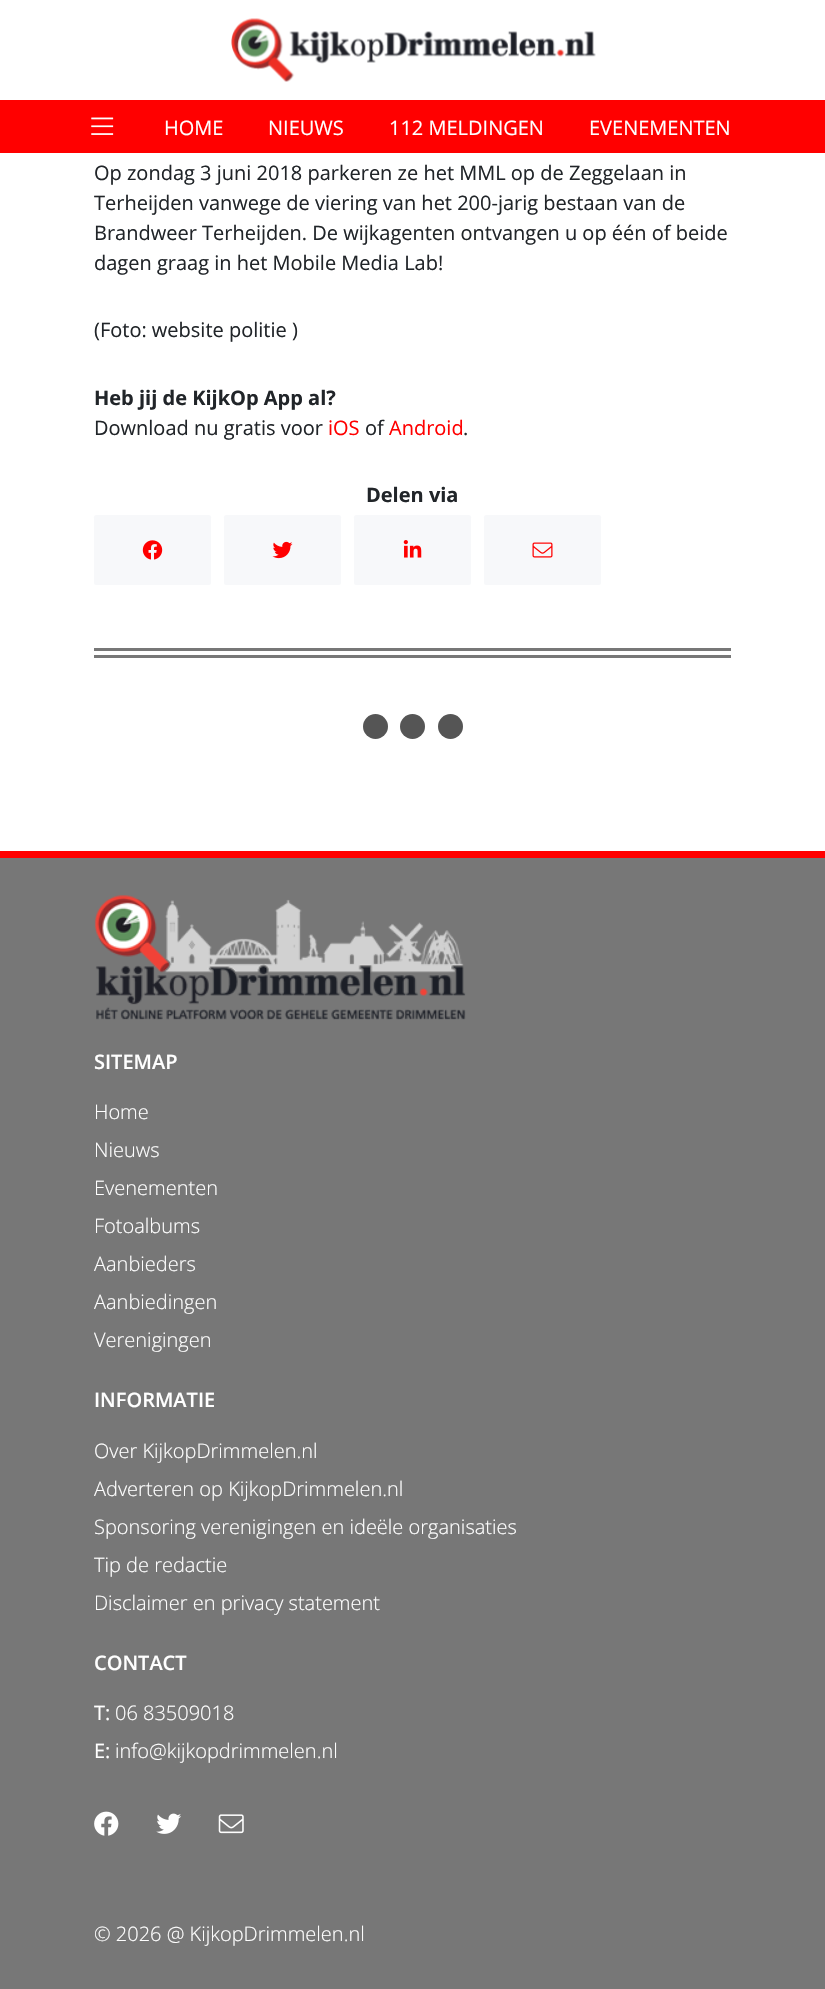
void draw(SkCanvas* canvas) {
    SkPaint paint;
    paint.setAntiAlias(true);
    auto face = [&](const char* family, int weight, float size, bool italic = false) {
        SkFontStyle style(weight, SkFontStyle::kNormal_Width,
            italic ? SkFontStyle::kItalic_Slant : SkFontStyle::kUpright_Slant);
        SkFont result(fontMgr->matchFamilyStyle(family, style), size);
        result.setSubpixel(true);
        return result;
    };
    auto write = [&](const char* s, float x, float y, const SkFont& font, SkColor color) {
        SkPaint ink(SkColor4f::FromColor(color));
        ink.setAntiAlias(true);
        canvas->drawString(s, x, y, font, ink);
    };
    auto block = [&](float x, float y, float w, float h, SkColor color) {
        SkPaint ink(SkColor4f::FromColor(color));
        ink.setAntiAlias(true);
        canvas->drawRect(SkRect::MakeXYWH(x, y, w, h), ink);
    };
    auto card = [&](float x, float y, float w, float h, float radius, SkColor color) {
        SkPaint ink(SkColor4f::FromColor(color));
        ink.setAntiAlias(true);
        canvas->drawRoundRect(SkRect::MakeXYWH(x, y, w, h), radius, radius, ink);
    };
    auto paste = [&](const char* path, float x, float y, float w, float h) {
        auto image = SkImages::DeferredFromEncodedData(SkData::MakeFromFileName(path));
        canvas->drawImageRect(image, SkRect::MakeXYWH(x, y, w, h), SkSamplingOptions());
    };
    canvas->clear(SK_ColorWHITE);
    paste("pic1.png", 231, 18, 365, 64);
    block(0, 100, 825, 53, SkColorSetRGB(255, 0, 0));
    paste("pic2.png", 91, 117, 23, 18);
    auto kFont1 = face("Open Sans", 400, 20);
    write("HOME", 164, 135, kFont1, SK_ColorWHITE);
    write("NIEUWS", 268, 135, kFont1, SK_ColorWHITE);
    write("112 MELDINGEN", 389, 135, kFont1, SK_ColorWHITE);
    write("EVENEMENTEN", 589, 135, kFont1, SK_ColorWHITE);
    write("Op zondag 3 juni 2018 parkeren ze het MML op de Zeggelaan in", 94, 180, kFont1, SkColorSetRGB(33, 37, 41));
    write("Terheijden vanwege de viering van het 200-jarig bestaan van de", 94, 210, kFont1, SkColorSetRGB(33, 37, 41));
    write("Brandweer Terheijden. De wijkagenten ontvangen u op één of beide", 94, 240, kFont1, SkColorSetRGB(33, 37, 41));
    write("dagen graag in het Mobile Media Lab!", 94, 270, kFont1, SkColorSetRGB(33, 37, 41));
    write("(Foto: website politie )", 94, 337, kFont1, SkColorSetRGB(33, 37, 41));
    auto kFont2 = face("Open Sans", 700, 20);
    write("Heb jij de KijkOp App al?", 94, 405, kFont2, SkColorSetRGB(33, 37, 41));
    write("Download nu gratis voor", 94, 435, kFont1, SkColorSetRGB(33, 37, 41));
    write("iOS", 328, 435, kFont1, SkColorSetRGB(255, 0, 0));
    write("of", 365, 435, kFont1, SkColorSetRGB(33, 37, 41));
    write("Android", 389, 435, kFont1, SkColorSetRGB(255, 0, 0));
    write(".", 463, 435, kFont1, SkColorSetRGB(33, 37, 41));
    write("Delen via", 366, 502, kFont2, SkColorSetRGB(33, 37, 41));
    card(94, 515, 117, 70, 2.5f, SkColorSetRGB(247, 248, 250));
    paste("pic3.png", 142, 540, 21, 20);
    card(224, 515, 117, 70, 2.5f, SkColorSetRGB(247, 248, 250));
    paste("pic4.png", 272, 541, 21, 18);
    card(354, 515, 117, 70, 2.5f, SkColorSetRGB(247, 248, 250));
    paste("pic5.png", 403, 540, 19, 18);
    card(484, 515, 117, 70, 2.5f, SkColorSetRGB(247, 248, 250));
    paste("pic6.png", 532, 542, 21, 16);
    block(94, 648, 637, 3, SkColorSetRGB(119, 119, 119));
    block(94, 655, 637, 3, SkColorSetRGB(119, 119, 119));
    paint.setColor(SkColorSetRGB(85, 85, 85));
    canvas->drawCircle(375.5f, 726.5f, 12.5f, paint);
    canvas->drawCircle(412.5f, 726.5f, 12.5f, paint);
    canvas->drawCircle(450.5f, 726.5f, 12.5f, paint);
    block(0, 858, 825, 1131, SkColorSetRGB(119, 119, 119));
    block(0, 851, 825, 7, SkColorSetRGB(255, 0, 0));
    paste("pic7.png", 94, 895, 372, 125);
    auto kFont3 = face("Open Sans", 600, 20);
    write("SITEMAP", 94, 1069, kFont3, SK_ColorWHITE);
    auto kFont4 = face("Open Sans", 300, 20);
    write("Home", 94, 1119, kFont4, SK_ColorWHITE);
    write("Nieuws", 94, 1157, kFont4, SK_ColorWHITE);
    write("Evenementen", 94, 1195, kFont4, SK_ColorWHITE);
    write("Fotoalbums", 94, 1233, kFont4, SK_ColorWHITE);
    write("Aanbieders", 94, 1271, kFont4, SK_ColorWHITE);
    write("Aanbiedingen", 94, 1309, kFont4, SK_ColorWHITE);
    write("Verenigingen", 94, 1347, kFont4, SK_ColorWHITE);
    write("INFORMATIE", 94, 1407, kFont3, SK_ColorWHITE);
    write("Over KijkopDrimmelen.nl", 94, 1458, kFont4, SK_ColorWHITE);
    write("Adverteren op KijkopDrimmelen.nl", 94, 1496, kFont4, SK_ColorWHITE);
    write("Sponsoring verenigingen en ideële organisaties", 94, 1534, kFont4, SK_ColorWHITE);
    write("Tip de redactie", 94, 1572, kFont4, SK_ColorWHITE);
    write("Disclaimer en privacy statement", 94, 1610, kFont4, SK_ColorWHITE);
    write("CONTACT", 94, 1670, kFont3, SK_ColorWHITE);
    write("T:", 94, 1720, kFont1, SK_ColorWHITE);
    write("06 83509018", 115, 1720, kFont4, SK_ColorWHITE);
    write("E:", 94, 1758, kFont1, SK_ColorWHITE);
    write("info@kijkopdrimmelen.nl", 115, 1758, kFont4, SK_ColorWHITE);
    paste("pic8.png", 94, 1811, 25, 25);
    paste("pic9.png", 156, 1813, 25, 21);
    paste("pic10.png", 218, 1814, 26, 20);
    write("© 2026 @ KijkopDrimmelen.nl", 94, 1941, kFont4, SK_ColorWHITE);
}
